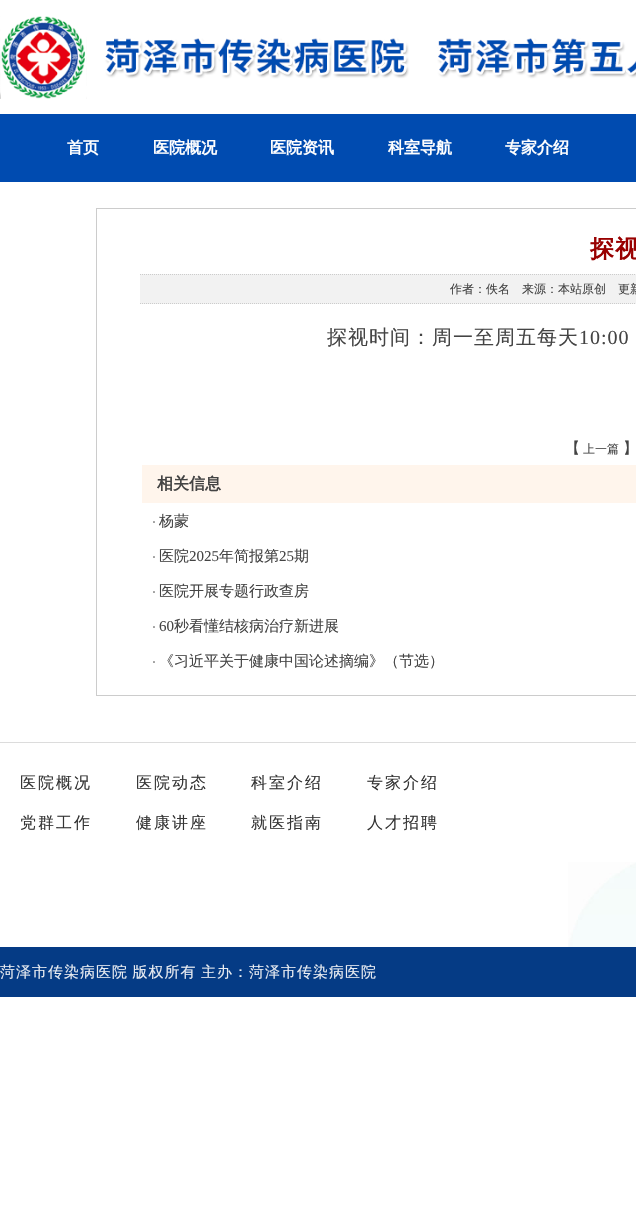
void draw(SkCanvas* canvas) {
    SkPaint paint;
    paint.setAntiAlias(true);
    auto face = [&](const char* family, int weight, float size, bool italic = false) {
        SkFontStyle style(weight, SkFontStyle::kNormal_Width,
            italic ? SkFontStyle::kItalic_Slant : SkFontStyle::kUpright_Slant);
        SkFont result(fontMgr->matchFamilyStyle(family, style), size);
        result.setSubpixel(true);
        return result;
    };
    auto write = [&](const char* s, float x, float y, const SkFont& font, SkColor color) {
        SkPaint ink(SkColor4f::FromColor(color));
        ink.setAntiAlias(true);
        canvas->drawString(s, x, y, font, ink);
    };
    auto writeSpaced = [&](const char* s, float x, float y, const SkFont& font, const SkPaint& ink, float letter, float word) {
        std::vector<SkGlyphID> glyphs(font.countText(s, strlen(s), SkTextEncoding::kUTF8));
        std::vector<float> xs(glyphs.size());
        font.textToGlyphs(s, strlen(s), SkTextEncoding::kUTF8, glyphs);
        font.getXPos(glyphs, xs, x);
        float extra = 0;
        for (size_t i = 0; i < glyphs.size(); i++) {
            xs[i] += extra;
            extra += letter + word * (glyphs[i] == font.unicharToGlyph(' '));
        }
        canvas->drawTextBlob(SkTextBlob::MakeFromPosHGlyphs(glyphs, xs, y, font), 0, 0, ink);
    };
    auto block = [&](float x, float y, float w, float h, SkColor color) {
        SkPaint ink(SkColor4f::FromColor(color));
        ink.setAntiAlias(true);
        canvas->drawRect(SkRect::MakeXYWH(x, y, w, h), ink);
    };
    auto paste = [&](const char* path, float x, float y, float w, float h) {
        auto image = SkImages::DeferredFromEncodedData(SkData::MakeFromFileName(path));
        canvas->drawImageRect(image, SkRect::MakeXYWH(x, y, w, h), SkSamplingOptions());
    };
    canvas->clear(SK_ColorWHITE);
    paste("pic1.png", 0, 16, 636, 83);
    block(0, 114, 636, 68, SkColorSetRGB(0, 75, 176));
    auto kFont1 = face("WenQuanYi Zen Hei", 700, 16);
    write("首页", 67, 153, kFont1, SK_ColorWHITE);
    write("医院概况", 153, 153, kFont1, SK_ColorWHITE);
    write("医院资讯", 270, 153, kFont1, SK_ColorWHITE);
    write("科室导航", 388, 153, kFont1, SK_ColorWHITE);
    write("专家介绍", 505, 153, kFont1, SK_ColorWHITE);
    paint.setStyle(SkPaint::kStroke_Style);
    paint.setStrokeWidth(1);
    paint.setColor(SkColorSetRGB(204, 204, 204));
    canvas->drawRect(SkRect::MakeXYWH(96.5f, 208.5f, 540, 487), paint);
    auto kFont2 = face("WenQuanYi Zen Hei", 700, 24);
    paint.setStyle(SkPaint::kFill_Style);
    paint.setColor(SkColorSetRGB(153, 0, 0));
    writeSpaced("探视", 590, 257, kFont2, paint, 1, 0);
    block(140, 274, 496, 30, SkColorSetRGB(242, 242, 242));
    paint.setStyle(SkPaint::kStroke_Style);
    paint.setColor(SkColorSetRGB(204, 204, 204));
    paint.setPathEffect(SkDashPathEffect::Make({{1, 1}}, 0));
    canvas->drawPath(SkPathBuilder().moveTo(140, 274.5f).lineTo(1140, 274.5f).detach(), paint);
    paint.setPathEffect(nullptr);
    paint.setPathEffect(SkDashPathEffect::Make({{1, 1}}, 0));
    canvas->drawPath(SkPathBuilder().moveTo(140, 303.5f).lineTo(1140, 303.5f).detach(), paint);
    paint.setPathEffect(nullptr);
    auto kFont3 = face("WenQuanYi Zen Hei", 500, 12);
    write("作者：佚名", 450, 293, kFont3, SkColorSetRGB(68, 68, 68));
    write("来源：本站原创", 522, 293, kFont3, SkColorSetRGB(68, 68, 68));
    write("更新", 618, 293, kFont3, SkColorSetRGB(68, 68, 68));
    auto kFont4 = face("WenQuanYi Zen Hei", 500, 20);
    paint.setStyle(SkPaint::kFill_Style);
    paint.setColor(SkColorSetRGB(68, 68, 68));
    writeSpaced("探视时间：周一至周五每天", 327, 344, kFont4, paint, 1, 0);
    auto kFont5 = face("Liberation Serif", 400, 20);
    writeSpaced("10:00", 579, 344, kFont5, paint, 1, 0);
    auto kFont6 = face("WenQuanYi Zen Hei", 500, 15);
    write("【", 565, 453, kFont6, SkColorSetRGB(68, 68, 68));
    write("上一篇", 583, 453, kFont3, SkColorSetRGB(68, 68, 68));
    write("】", 623, 453, kFont6, SkColorSetRGB(68, 68, 68));
    block(142, 465, 494, 38, SkColorSetRGB(255, 245, 236));
    write("相关信息", 157, 489, kFont1, SkColorSetRGB(68, 68, 68));
    auto kFont7 = face("Liberation Serif", 400, 12);
    write("·", 152, 526, kFont7, SkColorSetRGB(68, 68, 68));
    write("杨蒙", 159, 526, kFont6, SkColorSetRGB(68, 68, 68));
    write("·", 152, 561, kFont7, SkColorSetRGB(68, 68, 68));
    write("医院", 159, 561, kFont6, SkColorSetRGB(68, 68, 68));
    auto kFont8 = face("Liberation Serif", 400, 15);
    write("2025", 189, 561, kFont8, SkColorSetRGB(68, 68, 68));
    write("年简报第", 219, 561, kFont6, SkColorSetRGB(68, 68, 68));
    write("25", 279, 561, kFont8, SkColorSetRGB(68, 68, 68));
    write("期", 294, 561, kFont6, SkColorSetRGB(68, 68, 68));
    write("·", 152, 596, kFont7, SkColorSetRGB(68, 68, 68));
    write("医院开展专题行政查房", 159, 596, kFont6, SkColorSetRGB(68, 68, 68));
    write("·", 152, 631, kFont7, SkColorSetRGB(68, 68, 68));
    write("60", 159, 631, kFont8, SkColorSetRGB(68, 68, 68));
    write("秒看懂结核病治疗新进展", 174, 631, kFont6, SkColorSetRGB(68, 68, 68));
    write("·", 152, 666, kFont7, SkColorSetRGB(68, 68, 68));
    write("《习近平关于健康中国论述摘编》（节选）", 159, 666, kFont6, SkColorSetRGB(68, 68, 68));
    paste("pic2.png", 568, 862, 68, 85);
    block(0, 742, 636, 1, SkColorSetRGB(220, 220, 220));
    auto kFont9 = face("WenQuanYi Zen Hei", 500, 16);
    paint.setColor(SkColorSetRGB(52, 52, 52));
    writeSpaced("医院概况", 20, 788, kFont9, paint, 2, 0);
    writeSpaced("医院动态", 136, 788, kFont9, paint, 2, 0);
    writeSpaced("科室介绍", 251, 788, kFont9, paint, 2, 0);
    writeSpaced("专家介绍", 367, 788, kFont9, paint, 2, 0);
    writeSpaced("党群工作", 20, 828, kFont9, paint, 2, 0);
    writeSpaced("健康讲座", 136, 828, kFont9, paint, 2, 0);
    writeSpaced("就医指南", 251, 828, kFont9, paint, 2, 0);
    writeSpaced("人才招聘", 367, 828, kFont9, paint, 2, 0);
    block(0, 947, 636, 50, SkColorSetRGB(5, 59, 133));
    paint.setColor(SkColorSetRGB(234, 237, 242));
    writeSpaced("菏泽市传染病医院 版权所有 主办：菏泽市传染病医院", 0, 977, kFont6, paint, 1, -1);
}
